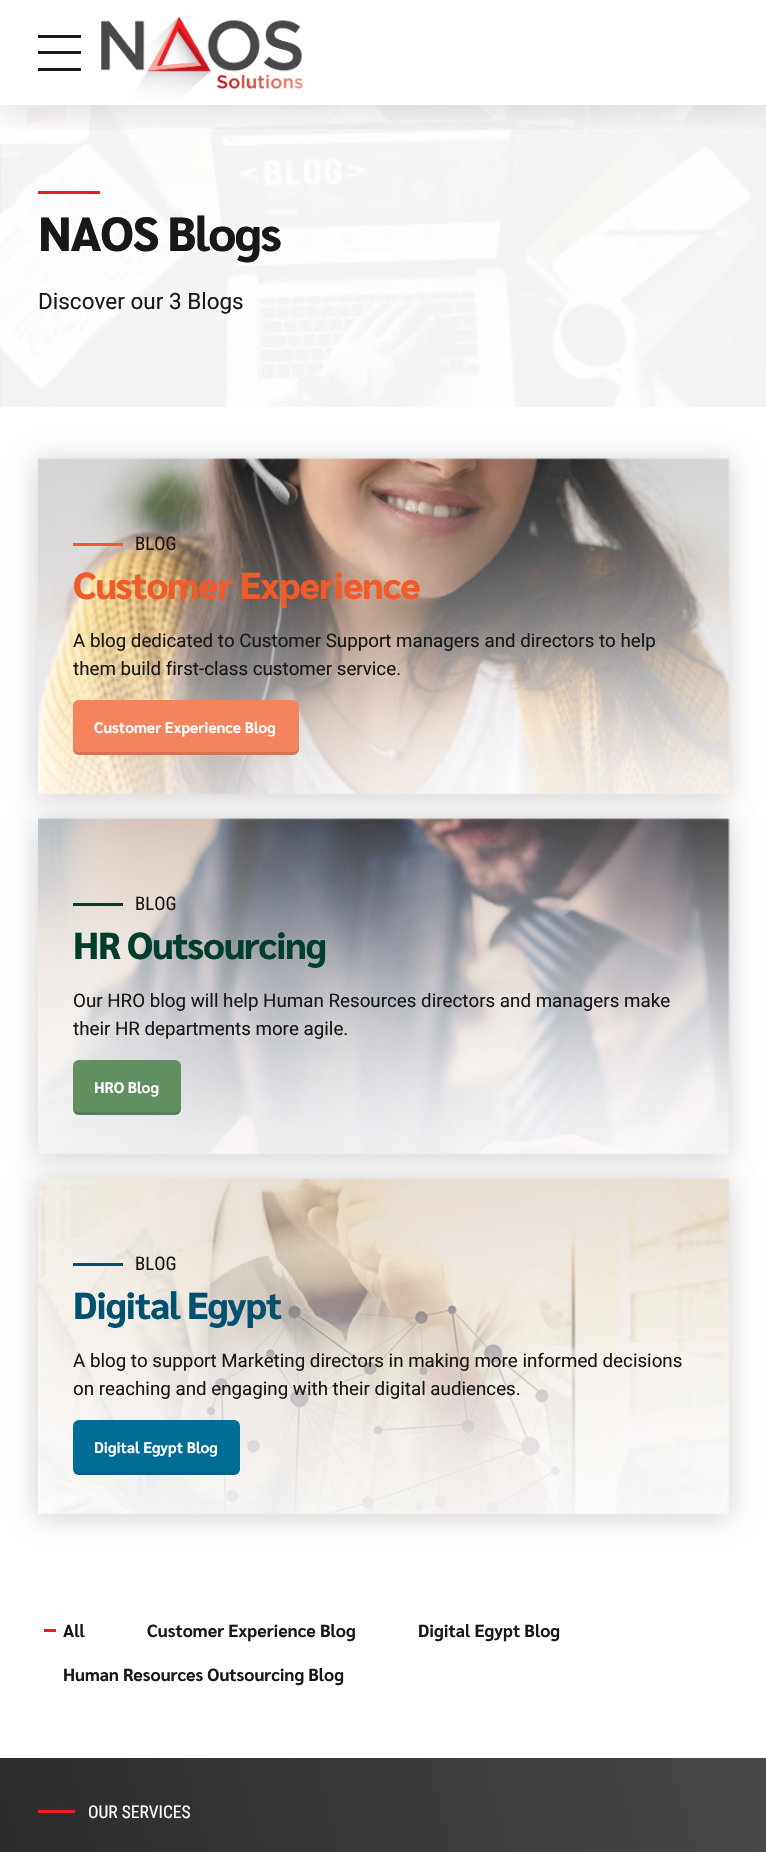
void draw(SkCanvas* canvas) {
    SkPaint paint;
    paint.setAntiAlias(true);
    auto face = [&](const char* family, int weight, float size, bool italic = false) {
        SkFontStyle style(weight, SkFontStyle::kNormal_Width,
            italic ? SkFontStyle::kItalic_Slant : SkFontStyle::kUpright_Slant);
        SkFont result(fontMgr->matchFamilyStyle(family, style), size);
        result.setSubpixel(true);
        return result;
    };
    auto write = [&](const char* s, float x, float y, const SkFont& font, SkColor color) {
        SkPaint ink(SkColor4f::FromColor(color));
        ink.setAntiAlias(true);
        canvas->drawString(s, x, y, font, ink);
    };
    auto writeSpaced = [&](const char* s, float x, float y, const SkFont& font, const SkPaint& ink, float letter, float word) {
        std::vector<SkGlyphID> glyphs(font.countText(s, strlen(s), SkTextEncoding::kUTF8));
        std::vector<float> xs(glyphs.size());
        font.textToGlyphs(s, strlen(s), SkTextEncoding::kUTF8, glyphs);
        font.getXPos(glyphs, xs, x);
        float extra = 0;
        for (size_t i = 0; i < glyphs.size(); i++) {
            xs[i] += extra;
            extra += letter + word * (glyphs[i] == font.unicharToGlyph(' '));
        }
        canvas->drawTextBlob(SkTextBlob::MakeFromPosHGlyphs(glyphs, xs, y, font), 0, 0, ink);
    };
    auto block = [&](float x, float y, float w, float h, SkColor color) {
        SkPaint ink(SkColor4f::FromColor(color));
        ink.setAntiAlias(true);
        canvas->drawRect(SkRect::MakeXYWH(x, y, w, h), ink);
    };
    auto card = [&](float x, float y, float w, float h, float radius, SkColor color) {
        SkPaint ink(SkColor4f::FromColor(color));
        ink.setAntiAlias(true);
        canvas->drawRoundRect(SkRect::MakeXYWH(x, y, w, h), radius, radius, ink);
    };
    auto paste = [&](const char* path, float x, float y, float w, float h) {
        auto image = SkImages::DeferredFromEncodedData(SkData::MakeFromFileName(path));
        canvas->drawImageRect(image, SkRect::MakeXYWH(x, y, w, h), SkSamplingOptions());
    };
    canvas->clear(SK_ColorWHITE);
    paste("pic2.png", 0, 105, 766, 302);
    canvas->save();
    canvas->clipRect(SkRect::MakeXYWH(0, 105, 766, 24));
    paint.setColor(SkColorSetARGB(38, 0, 0, 0));
    paint.setMaskFilter(SkMaskFilter::MakeBlur(kNormal_SkBlurStyle, 19));
    canvas->drawRect(SkRect::MakeXYWH(0, 3, 766, 105), paint);
    paint.setMaskFilter(nullptr);
    canvas->restore();
    block(38, 35, 43, 3, SkColorSetRGB(24, 24, 24));
    block(38, 51, 43, 3, SkColorSetRGB(24, 24, 24));
    block(38, 68, 43, 3, SkColorSetRGB(24, 24, 24));
    paste("pic1.png", 101, 16, 202, 83);
    block(38, 191, 62, 3, SkColorSetRGB(237, 28, 36));
    auto kFont1 = face("Sarabun", 800, 48);
    paint.setColor(SkColorSetRGB(24, 24, 24));
    writeSpaced("NAOS Blogs", 38, 251, kFont1, paint, -1.5f, 0);
    auto kFont2 = face("Roboto", 400, 22.5f);
    write("Discover our 3 Blogs", 38, 309, kFont2, SkColorSetRGB(24, 24, 24));
    paint.setColor(SkColorSetARGB(51, 0, 0, 0));
    paint.setMaskFilter(SkMaskFilter::MakeBlur(kNormal_SkBlurStyle, 12.5f));
    canvas->drawRect(SkRect::MakeXYWH(38, 461, 691, 335), paint);
    paint.setMaskFilter(nullptr);
    paste("pic3.png", 38, 458, 692, 337);
    block(73, 543, 50, 3, SkColorSetRGB(241, 90, 41));
    auto kFont3 = face("Roboto Condensed", 400, 18.75f);
    write("BLOG", 135, 550, kFont3, SkColorSetRGB(24, 24, 24));
    auto kFont4 = face("Sarabun", 800, 37.5f);
    paint.setColor(SkColorSetRGB(241, 90, 41));
    writeSpaced("Customer Experience", 73, 599, kFont4, paint, -1.1f, 0);
    auto kFont5 = face("Roboto", 400, 18.75f);
    write("A blog dedicated to Customer Support managers and directors to help", 73, 647, kFont5, SkColorSetRGB(24, 24, 24));
    write("them build first-class customer service.", 73, 675, kFont5, SkColorSetRGB(24, 24, 24));
    card(73, 700, 226, 55, 6, SkColorSetRGB(245, 131, 91));
    paint.setColor(SkColorSetARGB(38, 24, 24, 24));
    canvas->drawPath(SkPathBuilder().moveTo(73, 749).cubicTo(73, 753, 76, 755, 79, 755).lineTo(293, 755).cubicTo(296, 755, 299, 752, 299, 749).lineTo(299, 746).cubicTo(299, 750, 296, 752, 292, 752).lineTo(79, 752).cubicTo(76, 752, 74, 751, 73, 749).close().detach(), paint);
    auto kFont6 = face("Sarabun", 700, 15.25f);
    write("Customer Experience Blog", 94, 733, kFont6, SK_ColorWHITE);
    paint.setColor(SkColorSetARGB(51, 0, 0, 0));
    paint.setMaskFilter(SkMaskFilter::MakeBlur(kNormal_SkBlurStyle, 12.5f));
    canvas->drawRect(SkRect::MakeXYWH(38, 821, 691, 335), paint);
    paint.setMaskFilter(nullptr);
    paste("pic4.png", 38, 818, 692, 337);
    block(73, 903, 50, 3, SkColorSetRGB(0, 62, 44));
    write("BLOG", 135, 910, kFont3, SkColorSetRGB(24, 24, 24));
    paint.setColor(SkColorSetRGB(0, 62, 44));
    writeSpaced("HR Outsourcing", 73, 959, kFont4, paint, -1.1f, 0);
    write("Our HRO blog will help Human Resources directors and managers make", 73, 1007, kFont5, SkColorSetRGB(24, 24, 24));
    write("their HR departments more agile.", 73, 1035, kFont5, SkColorSetRGB(24, 24, 24));
    card(73, 1060, 108, 55, 6, SkColorSetRGB(96, 143, 96));
    paint.setColor(SkColorSetARGB(38, 24, 24, 24));
    canvas->drawPath(SkPathBuilder().moveTo(73, 1109).cubicTo(73, 1113, 76, 1115, 79, 1115).lineTo(175, 1115).cubicTo(178, 1115, 181, 1112, 181, 1109).lineTo(181, 1106).cubicTo(181, 1110, 178, 1112, 175, 1112).lineTo(79, 1112).cubicTo(76, 1112, 74, 1111, 73, 1109).close().detach(), paint);
    write("HRO Blog", 94, 1093, kFont6, SK_ColorWHITE);
    paint.setColor(SkColorSetARGB(51, 0, 0, 0));
    paint.setMaskFilter(SkMaskFilter::MakeBlur(kNormal_SkBlurStyle, 12.5f));
    canvas->drawRect(SkRect::MakeXYWH(38, 1181, 691, 335), paint);
    paint.setMaskFilter(nullptr);
    paste("pic5.png", 38, 1178, 692, 337);
    block(73, 1263, 50, 3, SkColorSetRGB(0, 80, 112));
    write("BLOG", 135, 1270, kFont3, SkColorSetRGB(24, 24, 24));
    paint.setColor(SkColorSetRGB(0, 80, 112));
    writeSpaced("Digital Egypt", 73, 1319, kFont4, paint, -1.1f, 0);
    write("A blog to support Marketing directors in making more informed decisions", 73, 1367, kFont5, SkColorSetRGB(24, 24, 24));
    write("on reaching and engaging with their digital audiences.", 73, 1395, kFont5, SkColorSetRGB(24, 24, 24));
    card(73, 1420, 167, 55, 6, SkColorSetRGB(0, 109, 150));
    paint.setColor(SkColorSetARGB(38, 24, 24, 24));
    canvas->drawPath(SkPathBuilder().moveTo(73, 1469).cubicTo(73, 1473, 76, 1475, 79, 1475).lineTo(234, 1475).cubicTo(237, 1475, 240, 1472, 240, 1469).lineTo(240, 1466).cubicTo(240, 1470, 237, 1472, 234, 1472).lineTo(79, 1472).cubicTo(76, 1472, 74, 1471, 73, 1469).close().detach(), paint);
    write("Digital Egypt Blog", 94, 1453, kFont6, SK_ColorWHITE);
    block(44, 1629, 12, 3, SkColorSetRGB(237, 28, 36));
    auto kFont7 = face("Sarabun", 700, 17.5f);
    write("All", 63, 1637, kFont7, SkColorSetRGB(24, 24, 24));
    write("Customer Experience Blog", 147, 1637, kFont7, SkColorSetRGB(24, 24, 24));
    write("Digital Egypt Blog", 418, 1637, kFont7, SkColorSetRGB(24, 24, 24));
    write("Human Resources Outsourcing Blog", 63, 1681, kFont7, SkColorSetRGB(24, 24, 24));
    {
        const SkColor colors[] = {SkColorSetRGB(32, 32, 32), SkColorSetRGB(72, 72, 72)};
        const float stops[] = {0, 1};
        const SkPoint ends[] = {{-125, 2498}, {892, 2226}};
        paint.setShader(SkGradientShader::MakeLinear(ends, colors, stops, 2, SkTileMode::kClamp));
        paint.setAlpha(255);
    }
    canvas->drawRect(SkRect::MakeXYWH(0, 1758, 766, 94), paint);
    block(38, 1810, 37, 3, SkColorSetRGB(237, 28, 36));
    auto kFont8 = face("Roboto Condensed", 400, 17.5f);
    write("OUR SERVICES", 88, 1818, kFont8, SK_ColorWHITE);
}
